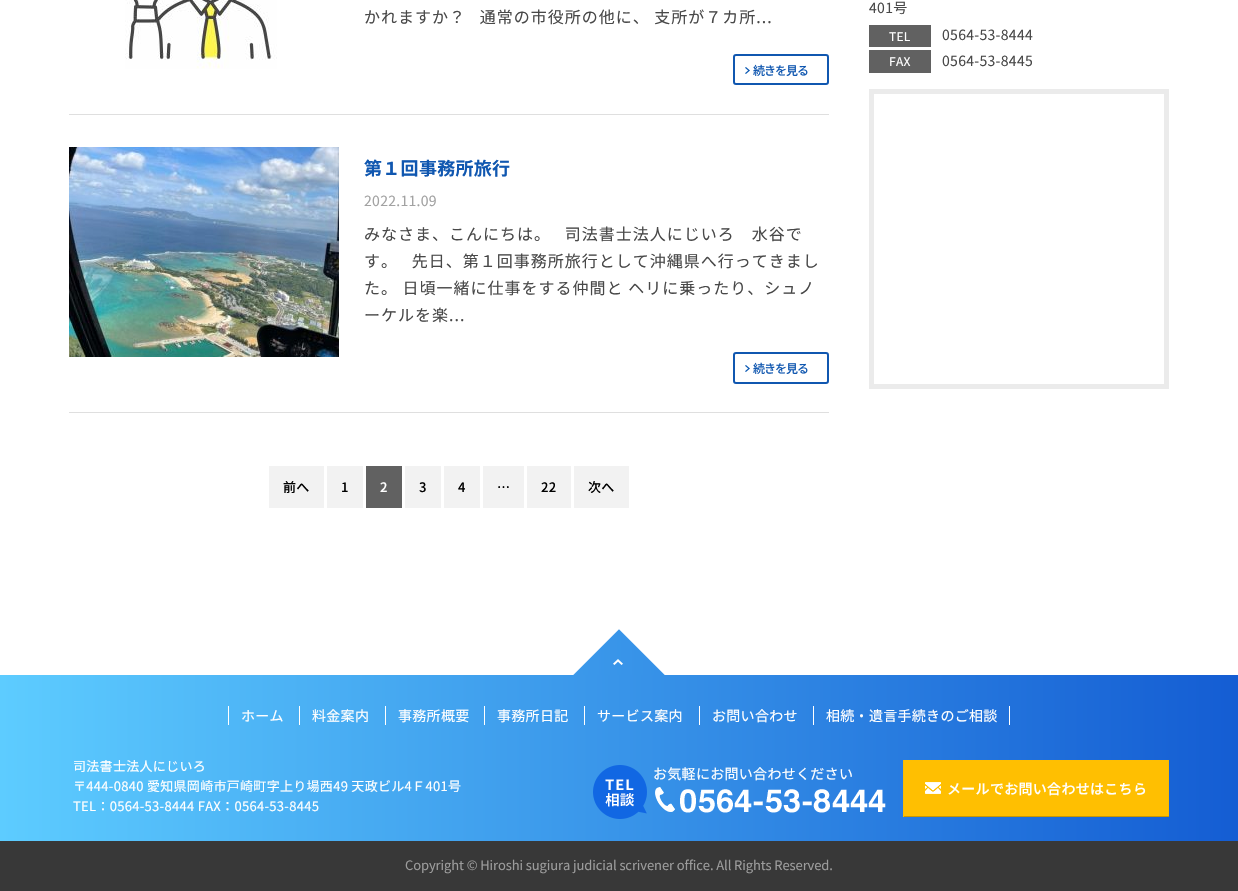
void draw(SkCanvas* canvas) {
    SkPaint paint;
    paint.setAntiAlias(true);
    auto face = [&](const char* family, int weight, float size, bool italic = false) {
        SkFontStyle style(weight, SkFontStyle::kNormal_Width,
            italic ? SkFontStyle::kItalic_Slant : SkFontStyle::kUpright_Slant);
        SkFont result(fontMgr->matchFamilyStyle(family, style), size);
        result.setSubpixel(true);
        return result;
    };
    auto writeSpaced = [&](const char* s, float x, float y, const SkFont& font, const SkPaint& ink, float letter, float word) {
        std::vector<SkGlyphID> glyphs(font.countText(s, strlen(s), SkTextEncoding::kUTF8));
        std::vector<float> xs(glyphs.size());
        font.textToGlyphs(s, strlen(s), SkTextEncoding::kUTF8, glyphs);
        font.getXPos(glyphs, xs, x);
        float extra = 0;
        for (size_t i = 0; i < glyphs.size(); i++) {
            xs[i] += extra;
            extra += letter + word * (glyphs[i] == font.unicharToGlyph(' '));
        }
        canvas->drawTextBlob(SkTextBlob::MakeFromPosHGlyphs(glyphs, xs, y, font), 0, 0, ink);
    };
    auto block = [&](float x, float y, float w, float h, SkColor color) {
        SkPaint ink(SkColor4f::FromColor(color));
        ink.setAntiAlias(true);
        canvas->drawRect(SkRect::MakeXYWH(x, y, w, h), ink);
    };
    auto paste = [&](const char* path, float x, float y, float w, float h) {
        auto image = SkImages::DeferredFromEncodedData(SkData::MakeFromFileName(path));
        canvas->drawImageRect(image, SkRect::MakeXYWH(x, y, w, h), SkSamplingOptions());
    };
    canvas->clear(SK_ColorWHITE);
    block(69, 114, 760, 1, SkColorSetRGB(223, 223, 223));
    paste("pic1.png", 125, 0, 152, 69);
    auto kFont1 = face("Noto Sans JP", 400, 16);
    paint.setColor(SkColorSetRGB(72, 72, 72));
    writeSpaced("かれますか？   通常の市役所の他に、 支所が７カ所...", 364, 23, kFont1, paint, 1, 0);
    paint.setStyle(SkPaint::kStroke_Style);
    paint.setStrokeWidth(2);
    paint.setColor(SkColorSetRGB(16, 87, 176));
    canvas->drawRoundRect(SkRect::MakeXYWH(734, 55, 94, 29), 2, 2, paint);
    paste("pic2.png", 745, 67, 5, 7);
    auto kFont2 = face("Noto Sans JP", 500, 12);
    paint.setStyle(SkPaint::kFill_Style);
    writeSpaced("続きを見る", 753, 75, kFont2, paint, -1, 0);
    block(69, 412, 760, 1, SkColorSetRGB(223, 223, 223));
    paste("pic3.png", 69, 147, 270, 210);
    auto kFont3 = face("Noto Sans JP", 700, 18);
    writeSpaced("第１回事務所旅行", 364, 175, kFont3, paint, 0.3f, 0);
    auto kFont4 = face("Noto Sans JP", 400, 14);
    paint.setColor(SkColorSetRGB(162, 162, 162));
    writeSpaced("2022.11.09", 364, 206, kFont4, paint, 0.3f, 0);
    paint.setColor(SkColorSetRGB(72, 72, 72));
    writeSpaced("みなさま、こんにちは。   司法書士法人にじいろ　水谷で", 364, 240, kFont1, paint, 1, 0);
    writeSpaced("す。   先日、第１回事務所旅行として沖縄県へ行ってきまし", 364, 267, kFont1, paint, 1, 0);
    writeSpaced("た。 日頃一緒に仕事をする仲間と ヘリに乗ったり、シュノ", 364, 294, kFont1, paint, 1, 0);
    writeSpaced("ーケルを楽...", 364, 321, kFont1, paint, 1, 0);
    paint.setStyle(SkPaint::kStroke_Style);
    paint.setColor(SkColorSetRGB(16, 87, 176));
    canvas->drawRoundRect(SkRect::MakeXYWH(734, 353, 94, 30), 2, 2, paint);
    paste("pic2.png", 745, 365, 5, 7);
    paint.setStyle(SkPaint::kFill_Style);
    writeSpaced("続きを見る", 753, 373, kFont2, paint, -1, 0);
    block(269, 466, 55, 42, SkColorSetRGB(242, 242, 242));
    auto kFont5 = face("Noto Sans JP", 500, 13);
    paint.setColor(SK_ColorBLACK);
    writeSpaced("前へ", 283, 492, kFont5, paint, 0.3f, 0);
    block(327, 466, 36, 42, SkColorSetRGB(242, 242, 242));
    writeSpaced("1", 341, 492, kFont5, paint, 0.3f, 0);
    block(366, 466, 36, 42, SkColorSetRGB(97, 97, 97));
    paint.setColor(SK_ColorWHITE);
    writeSpaced("2", 380, 492, kFont5, paint, 0.3f, 0);
    block(405, 466, 36, 42, SkColorSetRGB(242, 242, 242));
    paint.setColor(SK_ColorBLACK);
    writeSpaced("3", 419, 492, kFont5, paint, 0.3f, 0);
    block(444, 466, 36, 42, SkColorSetRGB(242, 242, 242));
    writeSpaced("4", 458, 492, kFont5, paint, 0.3f, 0);
    block(483, 466, 41, 42, SkColorSetRGB(242, 242, 242));
    writeSpaced("…", 497, 492, kFont5, paint, 0.3f, 0);
    block(527, 466, 44, 42, SkColorSetRGB(242, 242, 242));
    writeSpaced("22", 541, 492, kFont5, paint, 0.3f, 0);
    block(574, 466, 55, 42, SkColorSetRGB(242, 242, 242));
    writeSpaced("次へ", 588, 492, kFont5, paint, 0.3f, 0);
    paint.setColor(SkColorSetRGB(72, 72, 72));
    writeSpaced("401号", 869, 13, kFont4, paint, 0.3f, 0);
    block(869, 25, 62, 22, SkColorSetRGB(97, 97, 97));
    auto kFont6 = face("Noto Sans JP", 400, 12);
    paint.setColor(SK_ColorWHITE);
    writeSpaced("TEL", 889, 41, kFont6, paint, 0.3f, 0);
    paint.setColor(SkColorSetRGB(72, 72, 72));
    writeSpaced("0564-53-8444", 942, 40, kFont4, paint, 0.3f, 0);
    block(869, 50, 62, 23, SkColorSetRGB(97, 97, 97));
    paint.setColor(SK_ColorWHITE);
    writeSpaced("FAX", 889, 66, kFont6, paint, 0.3f, 0);
    paint.setColor(SkColorSetRGB(72, 72, 72));
    writeSpaced("0564-53-8445", 942, 66, kFont4, paint, 0.3f, 0);
    paint.setStyle(SkPaint::kStroke_Style);
    paint.setStrokeWidth(5);
    paint.setColor(SkColorSetRGB(235, 235, 235));
    canvas->drawRect(SkRect::MakeXYWH(871.5f, 91.5f, 295, 295), paint);
    paint.setStyle(SkPaint::kFill_Style);
    {
        const SkColor colors[] = {SkColorSetRGB(89, 89, 89), SkColorSetRGB(44, 44, 44), SkColorSetRGB(93, 204, 255), SkColorSetRGB(20, 93, 211)};
        const float stops[] = {0, 0, 0, 1};
        const SkPoint ends[] = {{0, 783}, {1238, 783}};
        paint.setShader(SkGradientShader::MakeLinear(ends, colors, stops, 4, SkTileMode::kClamp));
        paint.setAlpha(255);
    }
    canvas->drawRect(SkRect::MakeXYWH(0, 675, 1238, 166), paint);
    paste("pic4.png", 573, 629, 92, 46);
    block(228, 706, 1, 19, SK_ColorWHITE);
    paint.setShader(nullptr);
    paint.setColor(SK_ColorWHITE);
    writeSpaced("ホーム", 241, 721, kFont4, paint, 0.3f, 0);
    block(299, 706, 1, 19, SK_ColorWHITE);
    writeSpaced("料金案内", 312, 721, kFont4, paint, 0.3f, 0);
    block(385, 706, 1, 19, SK_ColorWHITE);
    writeSpaced("事務所概要", 398, 721, kFont4, paint, 0.3f, 0);
    block(484, 706, 1, 19, SK_ColorWHITE);
    writeSpaced("事務所日記", 497, 721, kFont4, paint, 0.3f, 0);
    block(584, 706, 1, 19, SK_ColorWHITE);
    writeSpaced("サービス案内", 597, 721, kFont4, paint, 0.3f, 0);
    block(699, 706, 1, 19, SK_ColorWHITE);
    writeSpaced("お問い合わせ", 712, 721, kFont4, paint, 0.3f, 0);
    block(1009, 706, 1, 19, SK_ColorWHITE);
    block(813, 706, 1, 19, SK_ColorWHITE);
    writeSpaced("相続・遺言手続きのご相談", 826, 721, kFont4, paint, 0.3f, 0);
    auto kFont7 = face("Noto Sans JP", 400, 13);
    writeSpaced("司法書士法人にじいろ", 73, 771, kFont7, paint, 0.3f, 0);
    writeSpaced("〒444-0840 愛知県岡崎市戸崎町字上り場西49 天政ビル4Ｆ401号", 73, 791, kFont7, paint, 0.3f, 0);
    writeSpaced("TEL：0564-53-8444 FAX：0564-53-8445", 73, 811, kFont7, paint, 0.3f, 0);
    paste("pic5.png", 593, 765, 54, 54);
    writeSpaced("お気軽にお問い合わせください", 653, 779, kFont4, paint, 0.3f, 0);
    paste("pic6.png", 655, 787, 231, 26);
    block(904, 760, 264, 56, SkColorSetRGB(255, 191, 1));
    block(1168, 760, 1, 57, SkColorSetRGB(249, 187, 1));
    block(903, 816, 266, 1, SkColorSetRGB(202, 151, 1));
    block(903, 760, 1, 57, SkColorSetRGB(249, 187, 1));
    paste("pic7.png", 925, 782, 16, 12);
    auto kFont8 = face("Noto Sans JP", 500, 14);
    writeSpaced("メールでお問い合わせはこちら", 947, 794, kFont8, paint, 0.3f, 0);
    block(0, 841, 1238, 50, SkColorSetRGB(56, 56, 56));
    paint.setColor(SkColorSetRGB(156, 156, 156));
    writeSpaced("Copyright © Hiroshi sugiura judicial scrivener office. All Rights Reserved.", 405, 870, kFont7, paint, -0.1f, 0);
}
